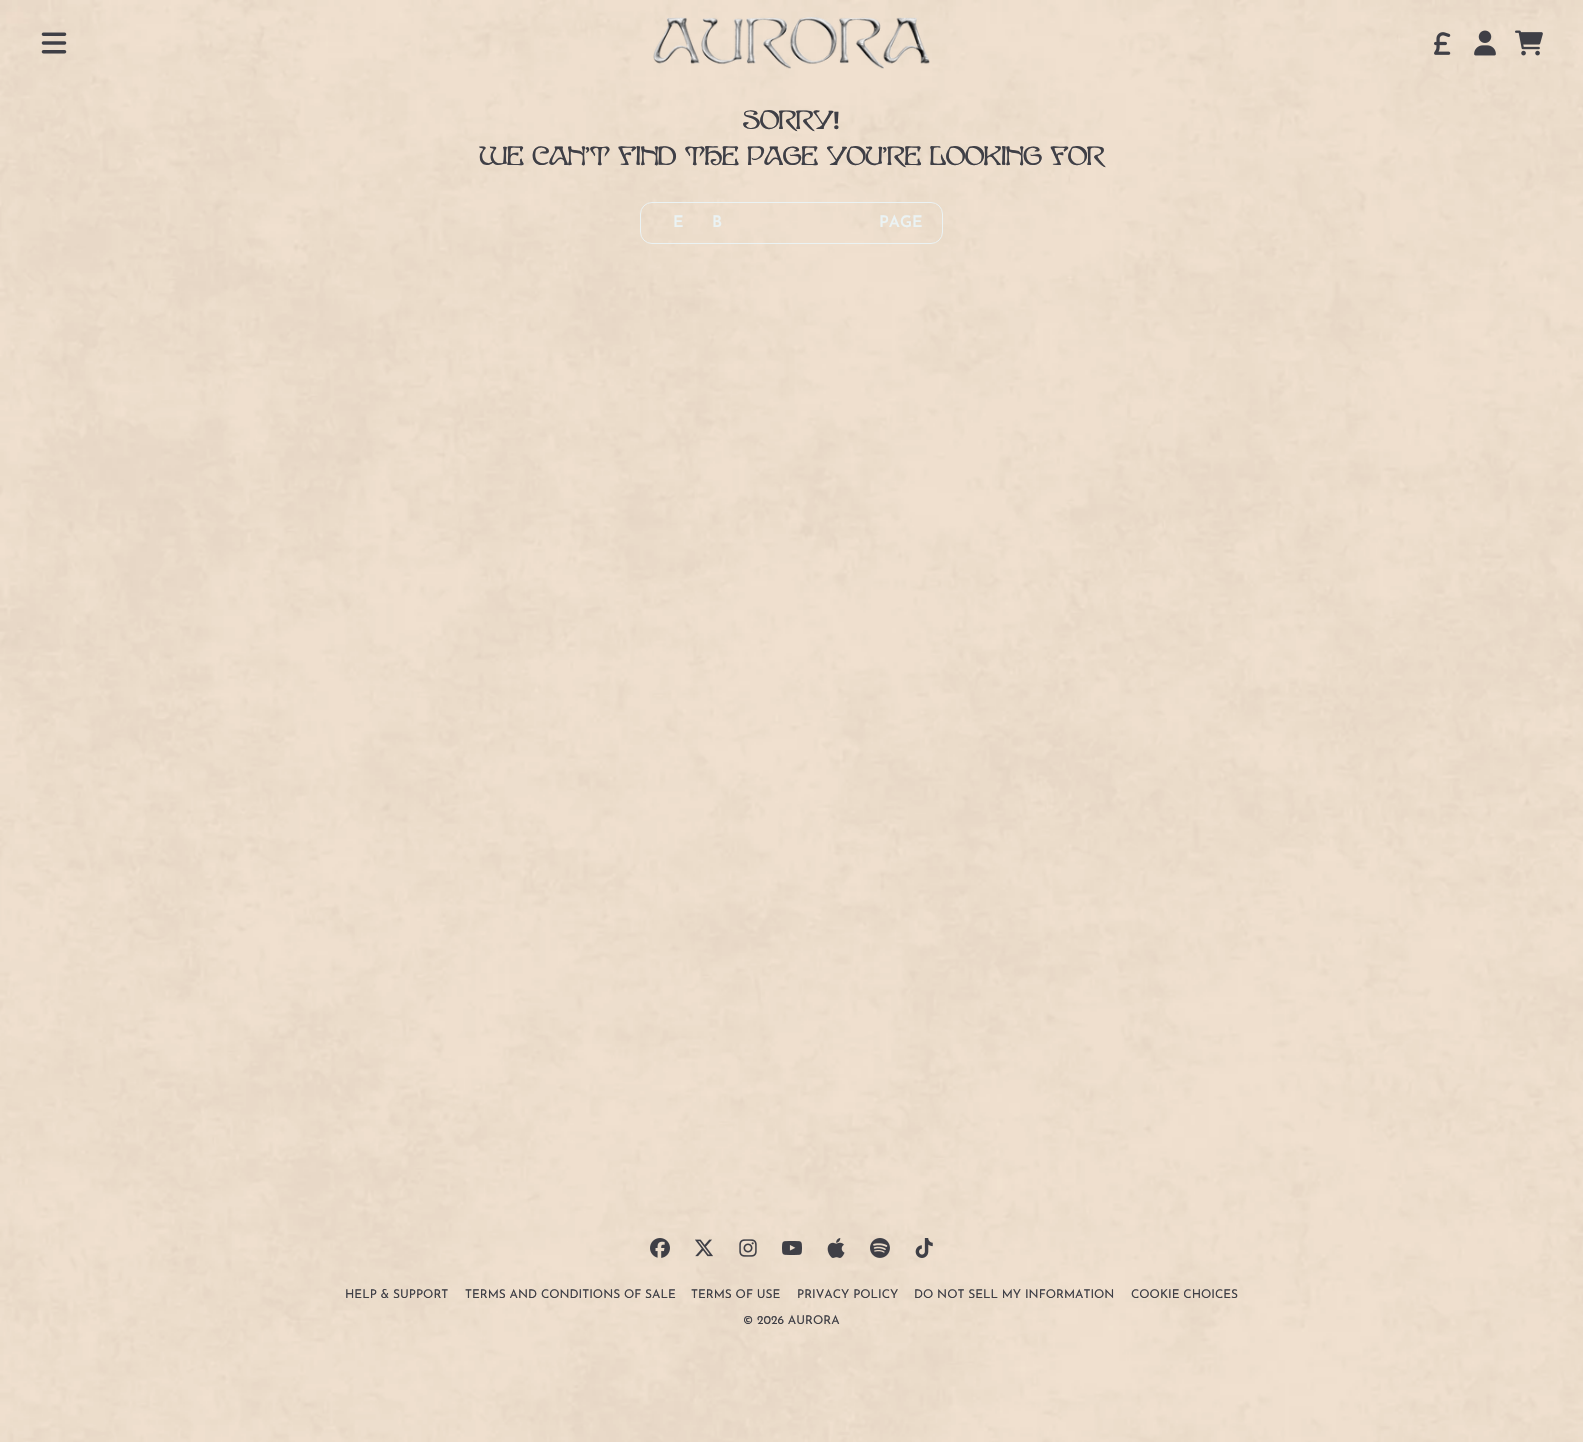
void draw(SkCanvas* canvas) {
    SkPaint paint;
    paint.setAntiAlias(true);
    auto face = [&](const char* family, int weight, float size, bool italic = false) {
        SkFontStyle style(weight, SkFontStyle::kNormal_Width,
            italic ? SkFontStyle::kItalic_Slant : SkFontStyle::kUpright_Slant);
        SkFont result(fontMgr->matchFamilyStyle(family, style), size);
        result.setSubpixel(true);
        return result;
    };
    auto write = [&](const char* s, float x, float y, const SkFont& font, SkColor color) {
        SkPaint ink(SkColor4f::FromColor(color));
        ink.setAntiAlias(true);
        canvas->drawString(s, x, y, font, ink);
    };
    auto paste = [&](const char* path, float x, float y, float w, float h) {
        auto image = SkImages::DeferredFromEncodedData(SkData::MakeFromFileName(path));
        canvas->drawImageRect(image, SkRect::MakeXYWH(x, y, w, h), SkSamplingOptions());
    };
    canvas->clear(SK_ColorWHITE);
    paste("pic1.png", 0, 0, 1583, 1442);
    paste("pic2.png", 41, 32, 26, 22);
    paste("pic3.png", 653, 17, 277, 52);
    paste("pic4.png", 1434, 32, 17, 23);
    paste("pic5.png", 1474, 30, 22, 26);
    paste("pic6.png", 1515, 30, 28, 26);
    auto kFont1 = face("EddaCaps", 700, 24);
    write("SORRY", 743, 129, kFont1, SkColorSetRGB(63, 63, 70));
    auto kFont2 = face("Noto Sans", 700, 24);
    write("!", 833, 129, kFont2, SkColorSetRGB(63, 63, 70));
    write("WE CAN'T FIND THE PAGE YOU'RE LOOKING FOR", 479, 165, kFont1, SkColorSetRGB(63, 63, 70));
    paint.setStyle(SkPaint::kStroke_Style);
    paint.setStrokeWidth(1);
    paint.setColor(SkColorSetRGB(235, 243, 244));
    canvas->drawRoundRect(SkRect::MakeXYWH(640.5f, 202.5f, 302, 41), 11.5f, 11.5f, paint);
    auto kFont3 = face("Josefin Sans", 600, 16);
    write("E", 673, 227, kFont3, SkColorSetRGB(235, 243, 244));
    write("B", 712, 227, kFont3, SkColorSetRGB(235, 243, 244));
    write("PAGE", 879, 227, kFont3, SkColorSetRGB(235, 243, 244));
    paste("pic7.png", 650, 1238, 20, 20);
    paste("pic8.png", 695, 1239, 18, 18);
    paste("pic9.png", 739, 1239, 18, 18);
    paste("pic10.png", 782, 1241, 20, 14);
    paste("pic11.png", 827, 1238, 18, 20);
    paste("pic12.png", 870, 1238, 20, 20);
    paste("pic13.png", 915, 1238, 18, 20);
    auto kFont4 = face("Josefin Sans", 400, 12);
    write("HELP & SUPPORT", 345, 1298, kFont4, SkColorSetRGB(63, 63, 70));
    write("TERMS AND CONDITIONS OF SALE", 465, 1298, kFont4, SkColorSetRGB(63, 63, 70));
    write("TERMS OF USE", 691, 1298, kFont4, SkColorSetRGB(63, 63, 70));
    write("PRIVACY POLICY", 797, 1298, kFont4, SkColorSetRGB(63, 63, 70));
    write("DO NOT SELL MY INFORMATION", 914, 1298, kFont4, SkColorSetRGB(63, 63, 70));
    write("COOKIE CHOICES", 1131, 1298, kFont4, SkColorSetRGB(63, 63, 70));
    write("© 2026 AURORA", 743, 1324, kFont4, SkColorSetRGB(63, 63, 70));
}
